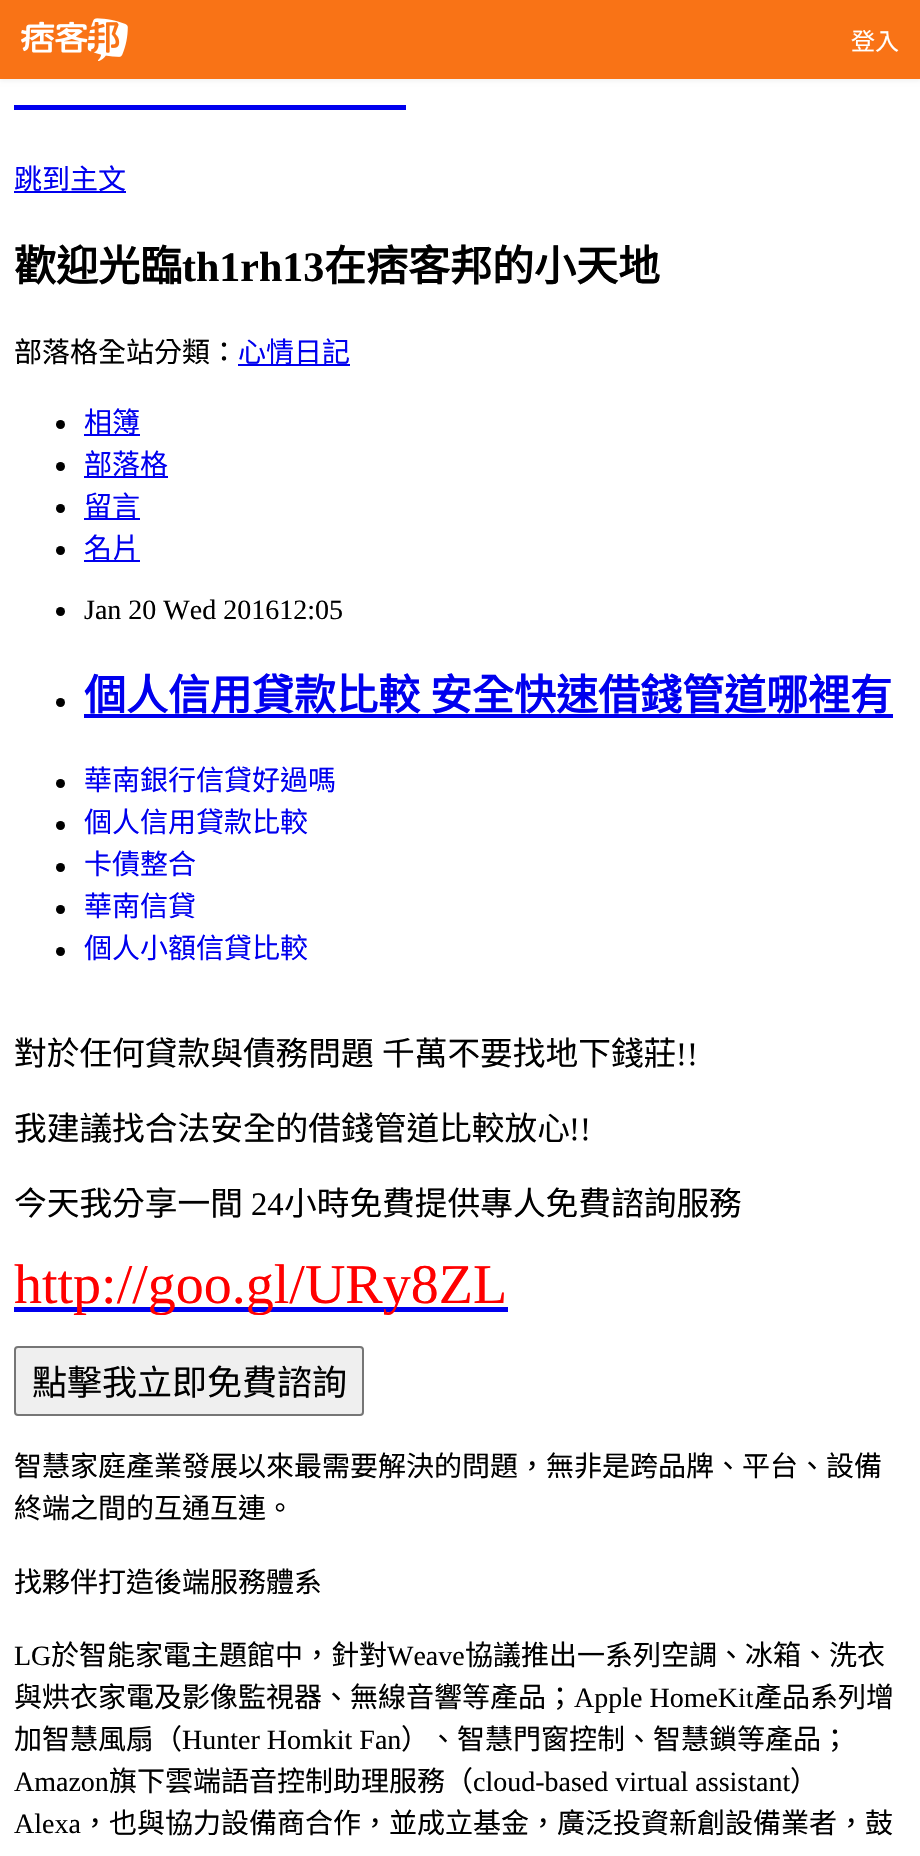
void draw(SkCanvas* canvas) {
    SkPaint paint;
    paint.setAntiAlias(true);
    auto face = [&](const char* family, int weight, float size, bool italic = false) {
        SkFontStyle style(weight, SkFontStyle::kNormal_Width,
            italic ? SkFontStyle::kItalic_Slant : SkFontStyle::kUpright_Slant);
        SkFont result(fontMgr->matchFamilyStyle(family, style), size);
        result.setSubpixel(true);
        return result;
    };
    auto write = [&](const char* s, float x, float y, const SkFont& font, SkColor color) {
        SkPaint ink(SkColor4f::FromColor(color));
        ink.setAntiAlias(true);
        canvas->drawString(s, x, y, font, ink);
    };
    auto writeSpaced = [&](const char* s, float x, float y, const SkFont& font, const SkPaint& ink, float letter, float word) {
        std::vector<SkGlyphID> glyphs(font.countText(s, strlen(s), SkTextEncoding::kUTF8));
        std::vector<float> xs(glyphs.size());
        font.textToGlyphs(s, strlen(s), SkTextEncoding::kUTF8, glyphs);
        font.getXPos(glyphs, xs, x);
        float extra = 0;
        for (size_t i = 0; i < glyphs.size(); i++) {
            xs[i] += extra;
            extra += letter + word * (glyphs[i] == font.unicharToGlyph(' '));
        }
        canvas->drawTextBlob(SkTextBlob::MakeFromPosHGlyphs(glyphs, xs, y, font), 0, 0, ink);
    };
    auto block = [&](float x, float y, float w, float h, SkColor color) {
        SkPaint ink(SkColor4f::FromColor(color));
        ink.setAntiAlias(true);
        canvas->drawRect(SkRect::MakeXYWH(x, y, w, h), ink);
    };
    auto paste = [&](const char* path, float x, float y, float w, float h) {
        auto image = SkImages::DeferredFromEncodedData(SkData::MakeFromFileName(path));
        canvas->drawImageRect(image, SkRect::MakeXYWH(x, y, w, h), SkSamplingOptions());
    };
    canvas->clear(SK_ColorWHITE);
    paint.setColor(SkColorSetARGB(13, 0, 0, 0));
    paint.setMaskFilter(SkMaskFilter::MakeBlur(kNormal_SkBlurStyle, 2));
    canvas->drawRect(SkRect::MakeXYWH(0, 2, 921, 79), paint);
    paint.setMaskFilter(nullptr);
    block(0, 0, 920, 79, SkColorSetRGB(249, 115, 22));
    paste("pic1.png", 21, 18, 107, 43);
    auto kFont1 = face("Noto Sans CJK TC", 400, 24);
    write("登入", 851, 50, kFont1, SK_ColorWHITE);
    block(14, 105, 392, 5, SkColorSetRGB(0, 0, 238));
    block(14, 191, 112, 2, SkColorSetRGB(0, 0, 238));
    auto kFont2 = face("Noto Sans CJK TC", 400, 28);
    write("跳到主文", 14, 189, kFont2, SkColorSetRGB(0, 0, 238));
    auto kFont3 = face("Noto Sans CJK TC", 700, 42);
    write("歡迎光臨", 14, 281, kFont3, SK_ColorBLACK);
    auto kFont4 = face("Liberation Serif", 700, 42);
    write("th1rh13", 182, 281, kFont4, SK_ColorBLACK);
    write("在痞客邦的小天地", 324, 281, kFont3, SK_ColorBLACK);
    write("部落格全站分類：", 14, 362, kFont2, SK_ColorBLACK);
    block(238, 364, 112, 2, SkColorSetRGB(0, 0, 238));
    write("心情日記", 238, 362, kFont2, SkColorSetRGB(0, 0, 238));
    paint.setColor(SK_ColorBLACK);
    canvas->drawCircle(60.5f, 424.5f, 4.5f, paint);
    block(84, 434, 56, 2, SkColorSetRGB(0, 0, 238));
    write("相簿", 84, 432, kFont2, SkColorSetRGB(0, 0, 238));
    canvas->drawCircle(60.5f, 466.5f, 4.5f, paint);
    block(84, 476, 84, 2, SkColorSetRGB(0, 0, 238));
    write("部落格", 84, 474, kFont2, SkColorSetRGB(0, 0, 238));
    canvas->drawCircle(60.5f, 508.5f, 4.5f, paint);
    block(84, 518, 56, 2, SkColorSetRGB(0, 0, 238));
    write("留言", 84, 516, kFont2, SkColorSetRGB(0, 0, 238));
    canvas->drawCircle(60.5f, 550.5f, 4.5f, paint);
    block(84, 560, 56, 2, SkColorSetRGB(0, 0, 238));
    write("名片", 84, 558, kFont2, SkColorSetRGB(0, 0, 238));
    canvas->drawCircle(60.5f, 611.5f, 4.5f, paint);
    auto kFont5 = face("Liberation Serif", 400, 28);
    write("Jan 20 Wed 201612:05", 84, 619, kFont5, SK_ColorBLACK);
    canvas->drawCircle(60.5f, 702.5f, 4.5f, paint);
    write("個人信用貸款比較", 84, 710, kFont3, SkColorSetRGB(0, 0, 238));
    block(84, 714, 809, 4, SkColorSetRGB(0, 0, 238));
    write("安全快速借錢管道哪裡有", 430, 710, kFont3, SkColorSetRGB(0, 0, 238));
    canvas->drawCircle(60.5f, 783.5f, 4.5f, paint);
    write("華南銀行信貸好過嗎", 84, 790, kFont2, SkColorSetRGB(0, 0, 238));
    canvas->drawCircle(60.5f, 825.5f, 4.5f, paint);
    write("個人信用貸款比較", 84, 832, kFont2, SkColorSetRGB(0, 0, 238));
    canvas->drawCircle(60.5f, 867.5f, 4.5f, paint);
    write("卡債整合", 84, 874, kFont2, SkColorSetRGB(0, 0, 238));
    canvas->drawCircle(60.5f, 909.5f, 4.5f, paint);
    write("華南信貸", 84, 916, kFont2, SkColorSetRGB(0, 0, 238));
    canvas->drawCircle(60.5f, 951.5f, 4.5f, paint);
    write("個人小額信貸比較", 84, 958, kFont2, SkColorSetRGB(0, 0, 238));
    auto kFont6 = face("Noto Sans CJK TC", 400, 32.7f);
    writeSpaced("對於任何貸款與債務問題 千萬不要找地下錢莊", 14, 1065, kFont6, paint, 0, 1);
    auto kFont7 = face("Liberation Serif", 400, 32.7f);
    write("!!", 676, 1065, kFont7, SK_ColorBLACK);
    write("我建議找合法安全的借錢管道比較放心", 14, 1140, kFont6, SK_ColorBLACK);
    write("!!", 569, 1140, kFont7, SK_ColorBLACK);
    write("今天我分享一間", 14, 1215, kFont6, SK_ColorBLACK);
    write("24", 251, 1215, kFont7, SK_ColorBLACK);
    write("小時免費提供專人免費諮詢服務", 284, 1215, kFont6, SK_ColorBLACK);
    block(14, 1307, 494, 5, SkColorSetRGB(0, 0, 238));
    auto kFont8 = face("Liberation Serif", 400, 56);
    write("http://goo.gl/URy8ZL", 14, 1303, kFont8, SkColorSetRGB(255, 0, 0));
    paint.setColor(SkColorSetRGB(239, 239, 239));
    canvas->drawRoundRect(SkRect::MakeXYWH(15, 1347, 348, 68), 3, 3, paint);
    paint.setStyle(SkPaint::kStroke_Style);
    paint.setStrokeWidth(2);
    paint.setColor(SkColorSetRGB(118, 118, 118));
    canvas->drawRoundRect(SkRect::MakeXYWH(15, 1347, 348, 68), 3, 3, paint);
    auto kFont9 = face("Noto Sans CJK TC", 400, 35);
    write("點擊我立即免費諮詢", 32, 1395, kFont9, SK_ColorBLACK);
    write("智慧家庭產業發展以來最需要解決的問題，無非是跨品牌、平台、設備", 14, 1476, kFont2, SK_ColorBLACK);
    write("終端之間的互通互連。", 14, 1518, kFont2, SK_ColorBLACK);
    write("找夥伴打造後端服務體系", 14, 1592, kFont2, SK_ColorBLACK);
    write("LG", 14, 1665, kFont5, SK_ColorBLACK);
    write("於智能家電主題館中，針對", 51, 1665, kFont2, SK_ColorBLACK);
    write("Weave", 387, 1665, kFont5, SK_ColorBLACK);
    write("協議推出一系列空調、冰箱、洗衣", 465, 1665, kFont2, SK_ColorBLACK);
    write("與烘衣家電及影像監視器、無線音響等產品；", 14, 1707, kFont2, SK_ColorBLACK);
    write("Apple HomeKit", 574, 1707, kFont5, SK_ColorBLACK);
    write("產品系列增", 754, 1707, kFont2, SK_ColorBLACK);
    write("加智慧風扇（", 14, 1749, kFont2, SK_ColorBLACK);
    write("Hunter Homkit Fan", 182, 1749, kFont5, SK_ColorBLACK);
    write("）、智慧門窗控制、智慧鎖等產品；", 401, 1749, kFont2, SK_ColorBLACK);
    write("Amazon", 14, 1791, kFont5, SK_ColorBLACK);
    write("旗下雲端語音控制助理服務（", 109, 1791, kFont2, SK_ColorBLACK);
    write("cloud-based virtual assistant", 473, 1791, kFont5, SK_ColorBLACK);
    write("）", 790, 1791, kFont2, SK_ColorBLACK);
    write("Alexa", 14, 1833, kFont5, SK_ColorBLACK);
    write("，也與協力設備商合作，並成立基金，廣泛投資新創設備業者，鼓", 81, 1833, kFont2, SK_ColorBLACK);
}
